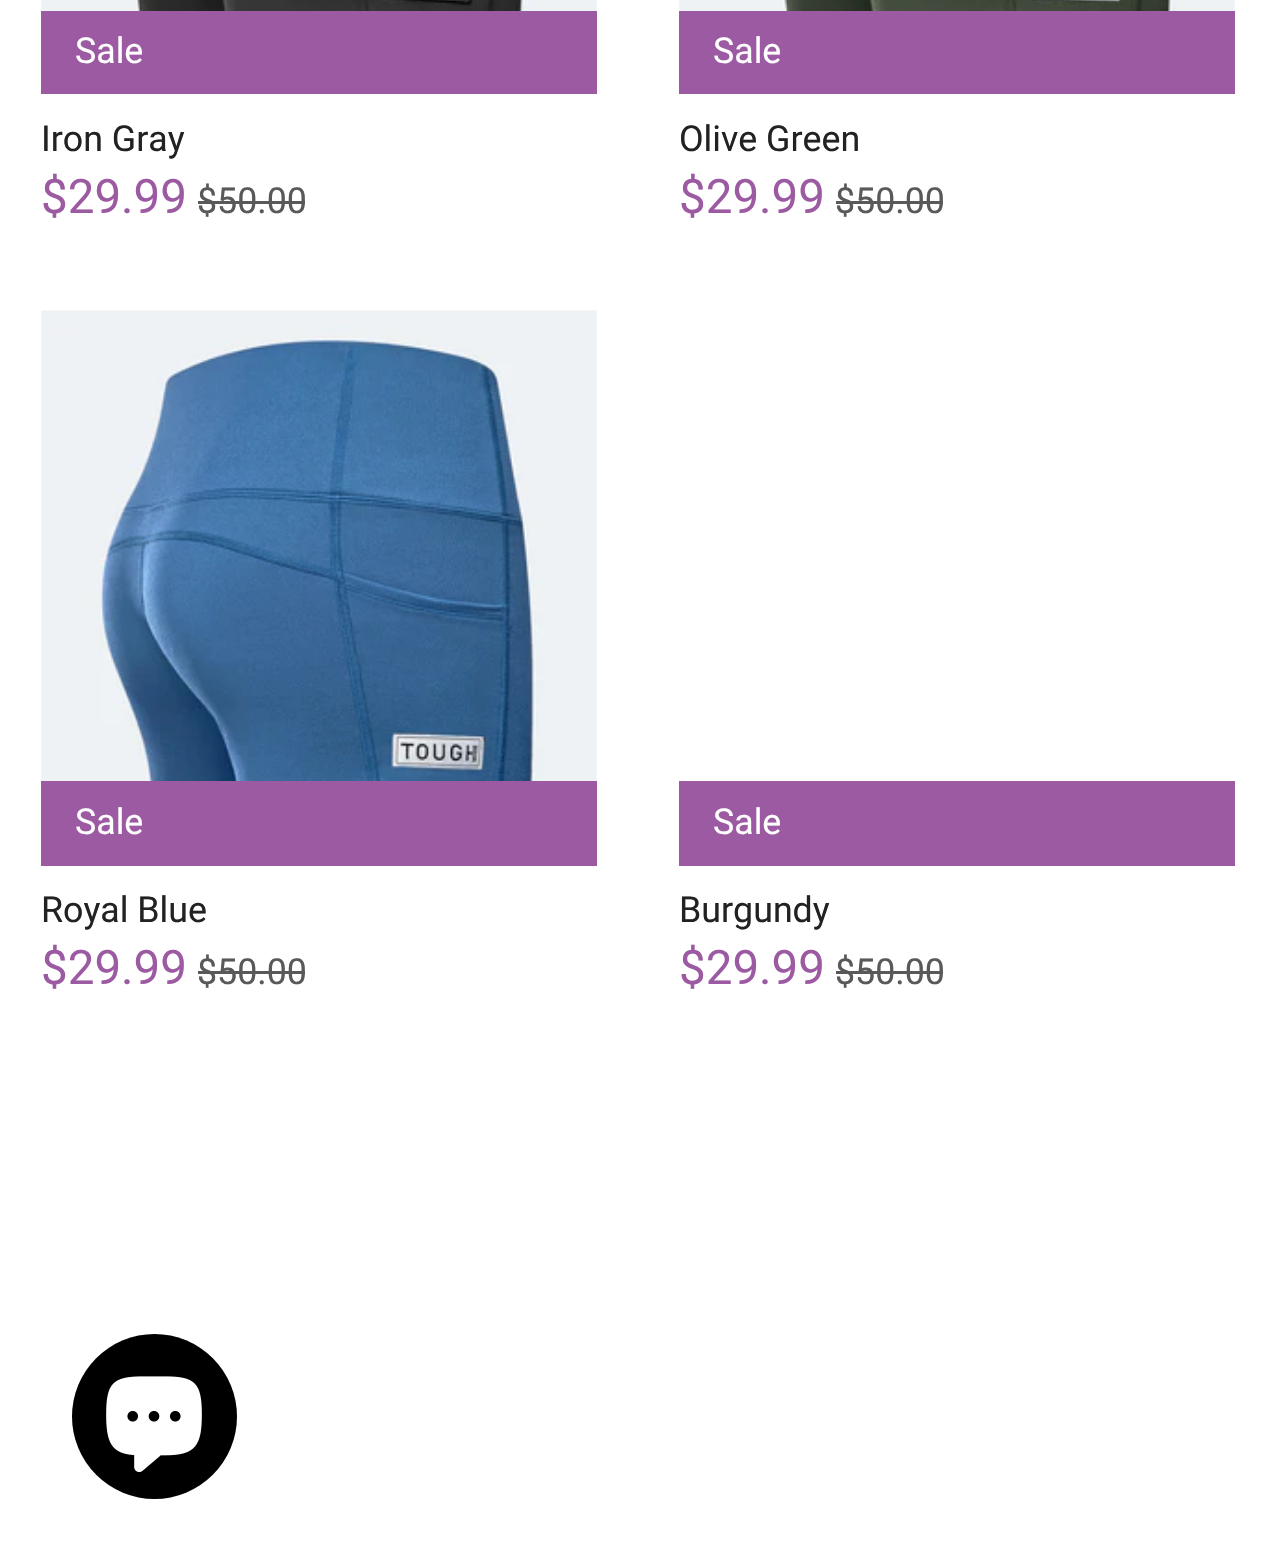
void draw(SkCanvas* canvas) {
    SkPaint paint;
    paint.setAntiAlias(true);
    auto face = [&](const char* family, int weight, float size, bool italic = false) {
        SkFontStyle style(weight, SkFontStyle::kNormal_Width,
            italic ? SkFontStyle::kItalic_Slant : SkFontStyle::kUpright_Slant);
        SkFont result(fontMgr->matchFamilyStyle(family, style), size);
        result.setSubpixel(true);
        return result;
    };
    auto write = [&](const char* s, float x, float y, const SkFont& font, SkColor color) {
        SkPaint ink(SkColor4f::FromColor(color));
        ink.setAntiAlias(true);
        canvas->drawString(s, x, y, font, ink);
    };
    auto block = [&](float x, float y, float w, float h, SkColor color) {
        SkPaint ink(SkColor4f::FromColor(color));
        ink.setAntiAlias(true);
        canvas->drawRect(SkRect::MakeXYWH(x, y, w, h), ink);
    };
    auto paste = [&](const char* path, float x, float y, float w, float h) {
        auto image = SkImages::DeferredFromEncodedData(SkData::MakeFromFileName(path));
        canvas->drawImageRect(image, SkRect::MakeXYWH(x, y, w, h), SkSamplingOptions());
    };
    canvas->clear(SK_ColorWHITE);
    paste("pic1.png", 41, 0, 556, 11);
    block(41, 11, 556, 83, SkColorSetRGB(156, 90, 162));
    auto kFont1 = face("Roboto", 400, 35.75f);
    write("Sale", 75, 63, kFont1, SK_ColorWHITE);
    write("Iron Gray", 41, 151, kFont1, SkColorSetRGB(34, 34, 34));
    auto kFont2 = face("Roboto", 400, 47.5f);
    write("$29.99", 41, 213, kFont2, SkColorSetRGB(156, 90, 162));
    write("$50.00", 197, 213, kFont1, SkColorSetRGB(89, 89, 89));
    block(198, 201, 107, 3, SkColorSetRGB(89, 89, 89));
    paste("pic2.png", 679, 0, 556, 11);
    block(679, 11, 556, 83, SkColorSetRGB(156, 90, 162));
    write("Sale", 713, 63, kFont1, SK_ColorWHITE);
    write("Olive Green", 679, 151, kFont1, SkColorSetRGB(34, 34, 34));
    write("$29.99", 679, 213, kFont2, SkColorSetRGB(156, 90, 162));
    write("$50.00", 835, 213, kFont1, SkColorSetRGB(89, 89, 89));
    block(836, 201, 107, 3, SkColorSetRGB(89, 89, 89));
    paste("pic3.png", 41, 310, 556, 471);
    block(41, 781, 556, 85, SkColorSetRGB(156, 90, 162));
    write("Sale", 75, 834, kFont1, SK_ColorWHITE);
    write("Royal Blue", 41, 922, kFont1, SkColorSetRGB(34, 34, 34));
    write("$29.99", 41, 984, kFont2, SkColorSetRGB(156, 90, 162));
    write("$50.00", 197, 984, kFont1, SkColorSetRGB(89, 89, 89));
    block(198, 971, 107, 3, SkColorSetRGB(89, 89, 89));
    block(679, 781, 556, 85, SkColorSetRGB(156, 90, 162));
    write("Sale", 713, 834, kFont1, SK_ColorWHITE);
    write("Burgundy", 679, 922, kFont1, SkColorSetRGB(34, 34, 34));
    write("$29.99", 679, 984, kFont2, SkColorSetRGB(156, 90, 162));
    write("$50.00", 835, 984, kFont1, SkColorSetRGB(89, 89, 89));
    block(836, 971, 107, 3, SkColorSetRGB(89, 89, 89));
    paint.setColor(SK_ColorBLACK);
    canvas->drawCircle(154.5f, 1416.5f, 82.5f, paint);
    paste("pic4.png", 106, 1376, 96, 97);
}
